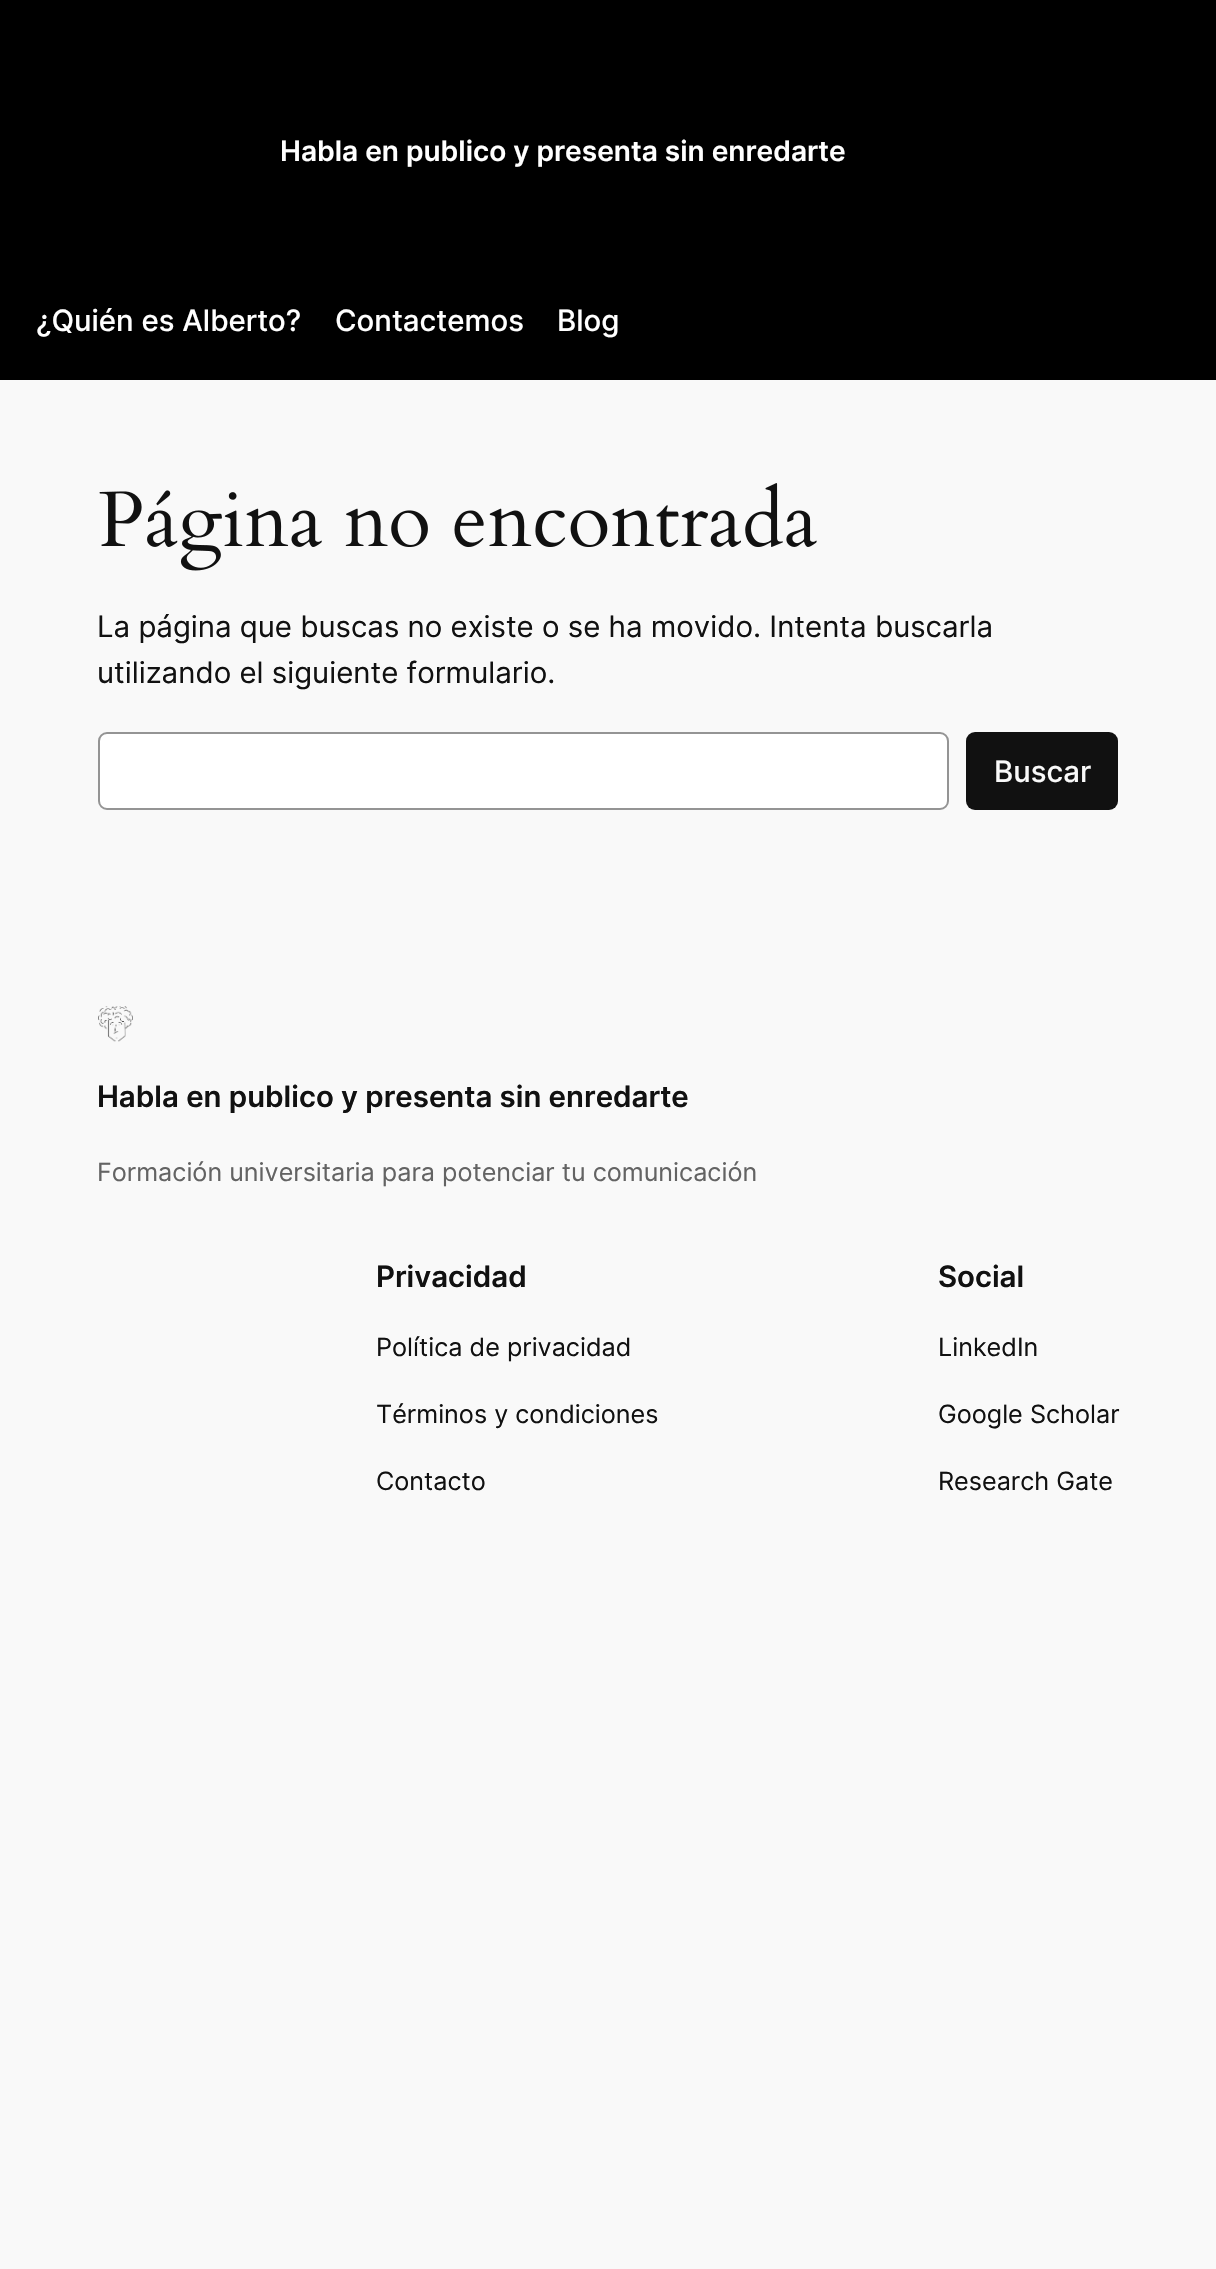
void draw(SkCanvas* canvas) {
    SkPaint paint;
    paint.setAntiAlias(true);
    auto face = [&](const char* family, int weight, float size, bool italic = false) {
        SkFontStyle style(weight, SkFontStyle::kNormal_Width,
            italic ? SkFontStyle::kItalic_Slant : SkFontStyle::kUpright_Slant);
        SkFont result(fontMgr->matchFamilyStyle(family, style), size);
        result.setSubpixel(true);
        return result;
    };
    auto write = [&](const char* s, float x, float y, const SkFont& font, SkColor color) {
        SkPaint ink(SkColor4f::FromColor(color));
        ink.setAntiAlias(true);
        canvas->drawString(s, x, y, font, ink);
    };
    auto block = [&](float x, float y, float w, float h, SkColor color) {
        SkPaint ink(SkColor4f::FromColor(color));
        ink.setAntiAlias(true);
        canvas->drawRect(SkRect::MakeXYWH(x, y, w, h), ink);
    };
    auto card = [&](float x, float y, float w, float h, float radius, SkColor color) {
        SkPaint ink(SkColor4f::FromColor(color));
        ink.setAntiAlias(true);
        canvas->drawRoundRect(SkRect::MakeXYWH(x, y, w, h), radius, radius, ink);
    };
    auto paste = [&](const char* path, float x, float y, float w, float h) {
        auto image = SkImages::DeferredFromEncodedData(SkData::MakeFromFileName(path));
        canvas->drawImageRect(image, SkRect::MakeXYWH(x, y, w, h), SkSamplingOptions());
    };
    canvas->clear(SkColorSetRGB(249, 249, 249));
    block(0, 0, 1216, 380, SK_ColorBLACK);
    auto kFont1 = face("Inter", 600, 28.1f);
    write("Habla en publico y presenta sin enredarte", 280, 161, kFont1, SK_ColorWHITE);
    auto kFont2 = face("Inter", 500, 29.4f);
    write("¿Quién es Alberto?", 36, 331, kFont2, SK_ColorWHITE);
    write("Contactemos", 335, 331, kFont2, SK_ColorWHITE);
    write("Blog", 557, 331, kFont2, SK_ColorWHITE);
    paste("pic1.png", 99, 483, 718, 88);
    auto kFont3 = face("Inter", 400, 29.4f);
    write("La página que buscas no existe o se ha movido. Intenta buscarla", 97, 637, kFont3, SkColorSetRGB(17, 17, 17));
    write("utilizando el siguiente formulario.", 97, 683, kFont3, SkColorSetRGB(17, 17, 17));
    paint.setColor(SK_ColorWHITE);
    canvas->drawRoundRect(SkRect::MakeXYWH(99, 733, 849, 76), 8, 8, paint);
    paint.setStyle(SkPaint::kStroke_Style);
    paint.setStrokeWidth(2);
    paint.setColor(SkColorSetRGB(148, 148, 148));
    canvas->drawRoundRect(SkRect::MakeXYWH(99, 733, 849, 76), 8, 8, paint);
    card(966, 732, 152, 78, 9, SkColorSetRGB(17, 17, 17));
    write("Buscar", 994, 782, kFont2, SkColorSetRGB(249, 249, 249));
    paste("pic2.png", 98, 1006, 35, 36);
    auto kFont4 = face("Inter", 600, 29.4f);
    write("Habla en publico y presenta sin enredarte", 97, 1107, kFont4, SkColorSetRGB(17, 17, 17));
    auto kFont5 = face("Inter", 400, 25.2f);
    write("Formación universitaria para potenciar tu comunicación", 97, 1181, kFont5, SkColorSetRGB(99, 99, 99));
    write("Privacidad", 376, 1287, kFont4, SkColorSetRGB(17, 17, 17));
    write("Política de privacidad", 376, 1356, kFont5, SkColorSetRGB(17, 17, 17));
    write("Términos y condiciones", 376, 1423, kFont5, SkColorSetRGB(17, 17, 17));
    write("Contacto", 376, 1490, kFont5, SkColorSetRGB(17, 17, 17));
    write("Social", 938, 1287, kFont4, SkColorSetRGB(17, 17, 17));
    write("LinkedIn", 938, 1356, kFont5, SkColorSetRGB(17, 17, 17));
    write("Google Scholar", 938, 1423, kFont5, SkColorSetRGB(17, 17, 17));
    write("Research Gate", 938, 1490, kFont5, SkColorSetRGB(17, 17, 17));
}
